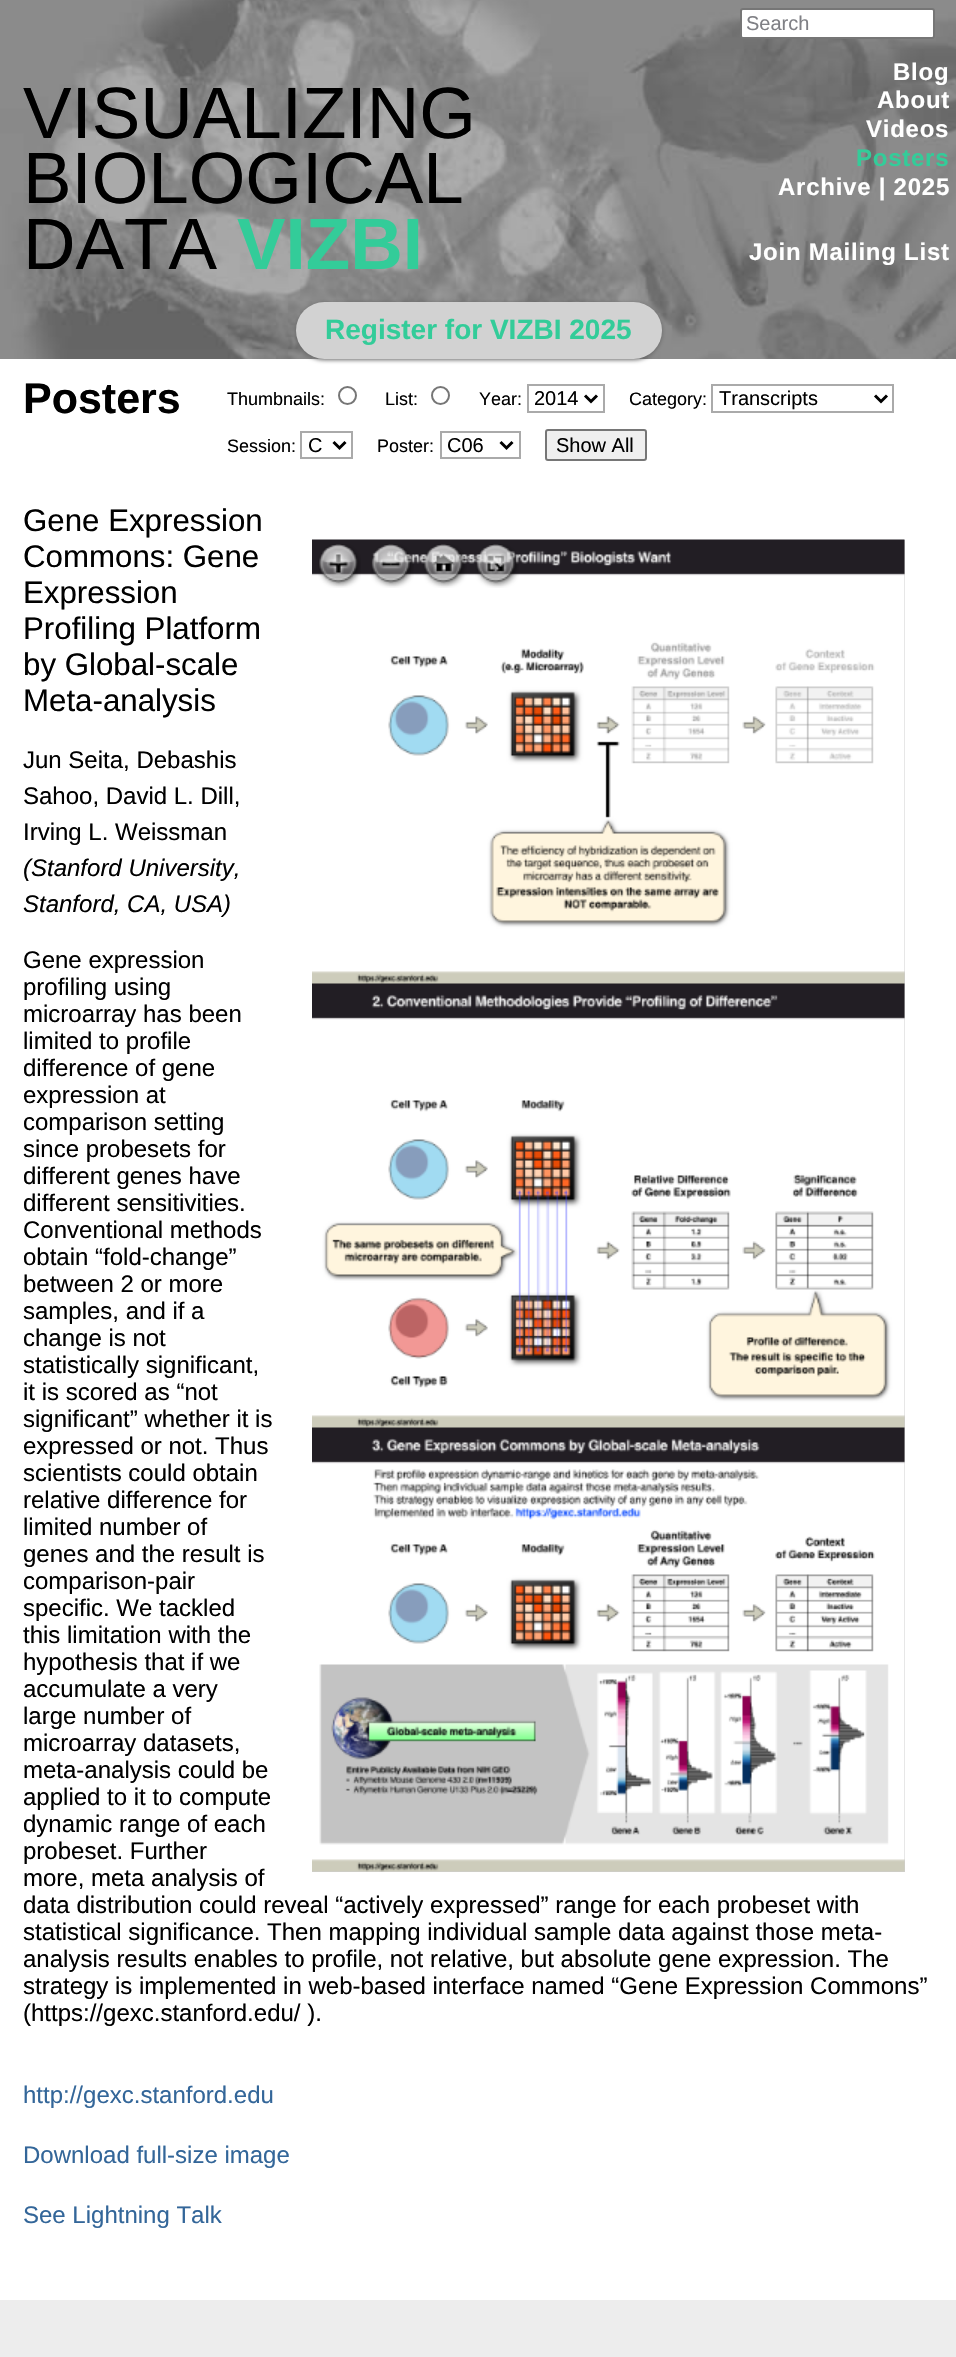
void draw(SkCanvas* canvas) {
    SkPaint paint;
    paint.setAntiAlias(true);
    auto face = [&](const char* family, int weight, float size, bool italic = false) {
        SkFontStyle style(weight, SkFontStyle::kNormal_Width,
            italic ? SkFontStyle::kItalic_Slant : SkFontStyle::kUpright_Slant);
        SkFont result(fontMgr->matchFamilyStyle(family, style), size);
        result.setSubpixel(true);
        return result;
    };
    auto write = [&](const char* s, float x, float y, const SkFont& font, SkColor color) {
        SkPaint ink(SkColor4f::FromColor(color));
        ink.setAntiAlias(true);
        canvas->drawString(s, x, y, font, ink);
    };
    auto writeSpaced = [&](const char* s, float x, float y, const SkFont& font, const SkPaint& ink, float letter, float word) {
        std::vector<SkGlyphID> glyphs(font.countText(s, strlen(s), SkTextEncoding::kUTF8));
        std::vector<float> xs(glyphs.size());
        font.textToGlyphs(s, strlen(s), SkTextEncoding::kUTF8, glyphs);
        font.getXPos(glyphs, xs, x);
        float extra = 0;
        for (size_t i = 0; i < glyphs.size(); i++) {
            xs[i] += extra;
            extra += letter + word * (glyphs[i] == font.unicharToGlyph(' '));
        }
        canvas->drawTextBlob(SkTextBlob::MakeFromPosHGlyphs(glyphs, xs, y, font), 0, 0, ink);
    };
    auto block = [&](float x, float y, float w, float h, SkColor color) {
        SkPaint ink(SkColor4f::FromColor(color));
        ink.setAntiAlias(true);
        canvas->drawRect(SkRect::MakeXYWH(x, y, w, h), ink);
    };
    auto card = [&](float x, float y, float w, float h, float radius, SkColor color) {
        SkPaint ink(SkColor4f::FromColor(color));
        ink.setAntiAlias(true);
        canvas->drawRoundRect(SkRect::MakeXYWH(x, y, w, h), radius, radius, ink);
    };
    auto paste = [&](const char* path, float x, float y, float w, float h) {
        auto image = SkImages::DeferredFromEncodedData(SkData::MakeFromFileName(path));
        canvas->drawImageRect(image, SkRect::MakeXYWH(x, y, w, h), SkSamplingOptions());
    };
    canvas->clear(SK_ColorWHITE);
    paste("pic1.png", 0, 0, 956, 359);
    block(0, 2300, 956, 57, SkColorSetRGB(237, 237, 237));
    auto kFont1 = face("Liberation Sans", 400, 72.75f);
    write("VISUALIZING", 23, 138, kFont1, SK_ColorBLACK);
    write("BIOLOGICAL", 23, 203, kFont1, SK_ColorBLACK);
    write("DATA", 23, 269, kFont1, SK_ColorBLACK);
    auto kFont2 = face("Liberation Sans", 700, 72.75f);
    write("VIZBI", 237, 269, kFont2, SkColorSetRGB(51, 204, 153));
    paint.setColor(SK_ColorWHITE);
    canvas->drawRoundRect(SkRect::MakeXYWH(741, 9, 193, 29), 2, 2, paint);
    paint.setStyle(SkPaint::kStroke_Style);
    paint.setStrokeWidth(2);
    paint.setColor(SkColorSetRGB(118, 118, 118));
    canvas->drawRoundRect(SkRect::MakeXYWH(741, 9, 193, 29), 2, 2, paint);
    auto kFont3 = face("Liberation Sans", 400, 20);
    write("Search", 746, 30, kFont3, SkColorSetRGB(127, 128, 133));
    auto kFont4 = face("Liberation Sans", 700, 24);
    paint.setStyle(SkPaint::kFill_Style);
    paint.setColor(SK_ColorWHITE);
    writeSpaced("Blog", 893, 80, kFont4, paint, 0.75f, 0);
    writeSpaced("About", 877, 108, kFont4, paint, 0.75f, 0);
    writeSpaced("Videos", 866, 137, kFont4, paint, 0.75f, 0);
    paint.setColor(SkColorSetRGB(51, 204, 153));
    writeSpaced("Posters", 856, 166, kFont4, paint, 0.75f, 0);
    paint.setColor(SK_ColorWHITE);
    writeSpaced("Archive | 2025", 778, 195, kFont4, paint, 0.75f, 0);
    writeSpaced("Join Mailing List", 749, 260, kFont4, paint, 0.75f, 0);
    paint.setColor(SkColorSetRGB(102, 102, 102));
    paint.setMaskFilter(SkMaskFilter::MakeBlur(kNormal_SkBlurStyle, 2));
    canvas->drawRoundRect(SkRect::MakeXYWH(296, 303, 366, 57), 28.5f, 28.5f, paint);
    paint.setMaskFilter(nullptr);
    card(296, 302, 366, 57, 28.5f, SkColorSetRGB(210, 210, 210));
    auto kFont5 = face("Liberation Sans", 700, 28);
    write("Register for VIZBI 2025", 325, 339, kFont5, SkColorSetRGB(51, 204, 153));
    auto kFont6 = face("Liberation Sans", 700, 43);
    write("Posters", 23, 413, kFont6, SK_ColorBLACK);
    auto kFont7 = face("Liberation Sans", 400, 18);
    write("Year:", 479, 405, kFont7, SK_ColorBLACK);
    paint.setStyle(SkPaint::kStroke_Style);
    paint.setColor(SkColorSetRGB(170, 170, 170));
    canvas->drawRect(SkRect::MakeXYWH(528, 385, 76, 27), paint);
    paint.setStrokeWidth(3);
    paint.setColor(SK_ColorBLACK);
    canvas->drawPath(SkPathBuilder().moveTo(585, 395.5f).lineTo(591, 401.5f).lineTo(597, 395.5f).detach(), paint);
    write("2014", 534, 405, kFont3, SK_ColorBLACK);
    write("Category:", 629, 405, kFont7, SK_ColorBLACK);
    paint.setStrokeWidth(2);
    paint.setColor(SkColorSetRGB(170, 170, 170));
    canvas->drawRect(SkRect::MakeXYWH(712, 385, 181, 27), paint);
    paint.setStrokeWidth(3);
    paint.setColor(SK_ColorBLACK);
    canvas->drawPath(SkPathBuilder().moveTo(875, 395.5f).lineTo(881, 401.5f).lineTo(887, 395.5f).detach(), paint);
    write("Transcripts", 719, 405, kFont3, SK_ColorBLACK);
    write("Session:", 227, 452, kFont7, SK_ColorBLACK);
    paint.setStrokeWidth(2);
    paint.setColor(SkColorSetRGB(170, 170, 170));
    canvas->drawRect(SkRect::MakeXYWH(301, 432, 51, 26), paint);
    paint.setStrokeWidth(3);
    paint.setColor(SK_ColorBLACK);
    canvas->drawPath(SkPathBuilder().moveTo(333.5f, 442).lineTo(339.5f, 448).lineTo(345.5f, 442).detach(), paint);
    write("C", 308, 452, kFont3, SK_ColorBLACK);
    write("Thumbnails:", 227, 405, kFont7, SK_ColorBLACK);
    paint.setStrokeWidth(2);
    paint.setColor(SkColorSetRGB(118, 118, 118));
    canvas->drawCircle(347.5f, 395.5f, 8.5f, paint);
    write("List:", 385, 405, kFont7, SK_ColorBLACK);
    canvas->drawCircle(440.5f, 395.5f, 8.5f, paint);
    write("Poster:", 377, 452, kFont7, SK_ColorBLACK);
    paint.setColor(SkColorSetRGB(170, 170, 170));
    canvas->drawRect(SkRect::MakeXYWH(441, 432, 79, 26), paint);
    paint.setStrokeWidth(3);
    paint.setColor(SK_ColorBLACK);
    canvas->drawPath(SkPathBuilder().moveTo(500.5f, 442).lineTo(506.5f, 448).lineTo(512.5f, 442).detach(), paint);
    write("C06", 447, 452, kFont3, SK_ColorBLACK);
    paint.setStyle(SkPaint::kFill_Style);
    paint.setColor(SkColorSetRGB(239, 239, 239));
    canvas->drawRoundRect(SkRect::MakeXYWH(546, 430, 100, 30), 2, 2, paint);
    paint.setStyle(SkPaint::kStroke_Style);
    paint.setStrokeWidth(2);
    paint.setColor(SkColorSetRGB(118, 118, 118));
    canvas->drawRoundRect(SkRect::MakeXYWH(546, 430, 100, 30), 2, 2, paint);
    write("Show All", 556, 452, kFont3, SK_ColorBLACK);
    auto kFont8 = face("Liberation Sans", 400, 31.25f);
    write("Gene Expression", 23, 531, kFont8, SK_ColorBLACK);
    write("Commons: Gene", 23, 567, kFont8, SK_ColorBLACK);
    write("Expression", 23, 603, kFont8, SK_ColorBLACK);
    write("Profiling Platform", 23, 639, kFont8, SK_ColorBLACK);
    write("by Global-scale", 23, 675, kFont8, SK_ColorBLACK);
    write("Meta-analysis", 23, 711, kFont8, SK_ColorBLACK);
    block(312, 540, 593, 1332, SkColorSetRGB(207, 207, 207));
    paste("pic2.png", 312, 539, 593, 1333);
    paste("pic3.png", 318, 544, 43, 44);
    paste("pic4.png", 319, 544, 39, 42);
    paste("pic5.png", 371, 544, 43, 44);
    paste("pic6.png", 372, 544, 39, 42);
    paste("pic7.png", 422, 544, 45, 44);
    paste("pic8.png", 424, 544, 41, 42);
    paste("pic9.png", 475, 544, 44, 44);
    paste("pic10.png", 477, 544, 40, 42);
    auto kFont9 = face("Liberation Sans", 400, 24);
    write("Jun Seita, Debashis", 23, 768, kFont9, SK_ColorBLACK);
    write("Sahoo, David L. Dill,", 23, 804, kFont9, SK_ColorBLACK);
    write("Irving L. Weissman", 23, 840, kFont9, SK_ColorBLACK);
    auto kFont10 = face("Liberation Sans", 400, 24, true);
    write("(Stanford University,", 23, 876, kFont10, SK_ColorBLACK);
    write("Stanford, CA, USA)", 23, 912, kFont10, SK_ColorBLACK);
    write("Gene expression", 23, 968, kFont9, SK_ColorBLACK);
    write("profiling using", 23, 995, kFont9, SK_ColorBLACK);
    write("microarray has been", 23, 1022, kFont9, SK_ColorBLACK);
    write("limited to profile", 23, 1049, kFont9, SK_ColorBLACK);
    write("difference of gene", 23, 1076, kFont9, SK_ColorBLACK);
    write("expression at", 23, 1103, kFont9, SK_ColorBLACK);
    write("comparison setting", 23, 1130, kFont9, SK_ColorBLACK);
    write("since probesets for", 23, 1157, kFont9, SK_ColorBLACK);
    write("different genes have", 23, 1184, kFont9, SK_ColorBLACK);
    write("different sensitivities.", 23, 1211, kFont9, SK_ColorBLACK);
    write("Conventional methods", 23, 1238, kFont9, SK_ColorBLACK);
    write("obtain “fold-change”", 23, 1265, kFont9, SK_ColorBLACK);
    write("between 2 or more", 23, 1292, kFont9, SK_ColorBLACK);
    write("samples, and if a", 23, 1319, kFont9, SK_ColorBLACK);
    write("change is not", 23, 1346, kFont9, SK_ColorBLACK);
    write("statistically significant,", 23, 1373, kFont9, SK_ColorBLACK);
    write("it is scored as “not", 23, 1400, kFont9, SK_ColorBLACK);
    write("significant” whether it is", 23, 1427, kFont9, SK_ColorBLACK);
    write("expressed or not. Thus", 23, 1454, kFont9, SK_ColorBLACK);
    write("scientists could obtain", 23, 1481, kFont9, SK_ColorBLACK);
    write("relative difference for", 23, 1508, kFont9, SK_ColorBLACK);
    write("limited number of", 23, 1535, kFont9, SK_ColorBLACK);
    write("genes and the result is", 23, 1562, kFont9, SK_ColorBLACK);
    write("comparison-pair", 23, 1589, kFont9, SK_ColorBLACK);
    write("specific. We tackled", 23, 1616, kFont9, SK_ColorBLACK);
    write("this limitation with the", 23, 1643, kFont9, SK_ColorBLACK);
    write("hypothesis that if we", 23, 1670, kFont9, SK_ColorBLACK);
    write("accumulate a very", 23, 1697, kFont9, SK_ColorBLACK);
    write("large number of", 23, 1724, kFont9, SK_ColorBLACK);
    write("microarray datasets,", 23, 1751, kFont9, SK_ColorBLACK);
    write("meta-analysis could be", 23, 1778, kFont9, SK_ColorBLACK);
    write("applied to it to compute", 23, 1805, kFont9, SK_ColorBLACK);
    write("dynamic range of each", 23, 1832, kFont9, SK_ColorBLACK);
    write("probeset. Further", 23, 1859, kFont9, SK_ColorBLACK);
    write("more, meta analysis of", 23, 1886, kFont9, SK_ColorBLACK);
    write("data distribution could reveal “actively expressed” range for each probeset with", 23, 1913, kFont9, SK_ColorBLACK);
    write("statistical significance. Then mapping individual sample data against those meta-", 23, 1940, kFont9, SK_ColorBLACK);
    write("analysis results enables to profile, not relative, but absolute gene expression. The", 23, 1967, kFont9, SK_ColorBLACK);
    write("strategy is implemented in web-based interface named “Gene Expression Commons”", 23, 1994, kFont9, SK_ColorBLACK);
    write("(https://gexc.stanford.edu/ ).", 23, 2021, kFont9, SK_ColorBLACK);
    write("http://gexc.stanford.edu", 23, 2103, kFont9, SkColorSetRGB(51, 102, 153));
    write("Download full-size image", 23, 2163, kFont9, SkColorSetRGB(51, 102, 153));
    write("See Lightning Talk", 23, 2223, kFont9, SkColorSetRGB(51, 102, 153));
}
